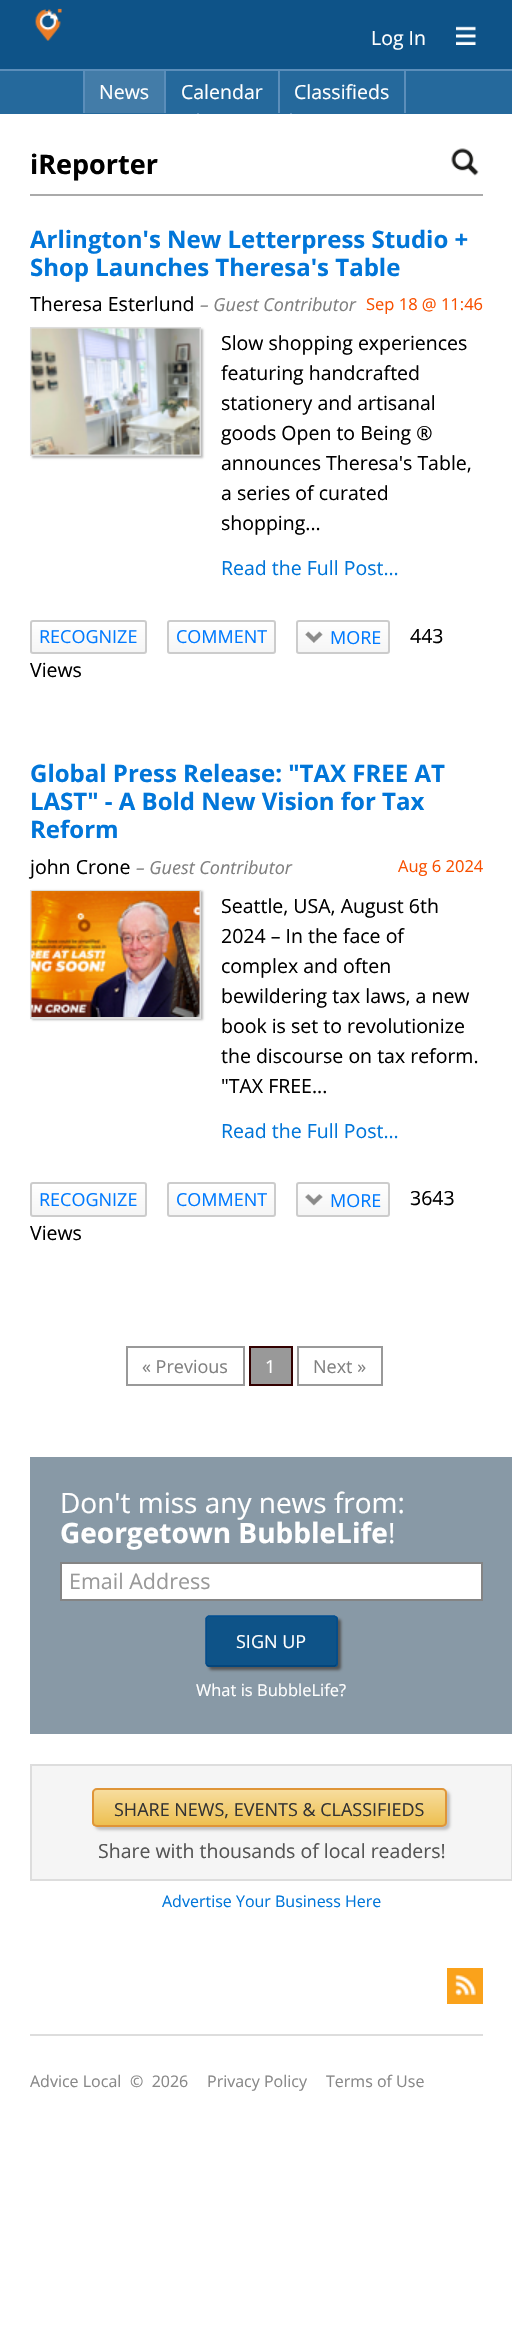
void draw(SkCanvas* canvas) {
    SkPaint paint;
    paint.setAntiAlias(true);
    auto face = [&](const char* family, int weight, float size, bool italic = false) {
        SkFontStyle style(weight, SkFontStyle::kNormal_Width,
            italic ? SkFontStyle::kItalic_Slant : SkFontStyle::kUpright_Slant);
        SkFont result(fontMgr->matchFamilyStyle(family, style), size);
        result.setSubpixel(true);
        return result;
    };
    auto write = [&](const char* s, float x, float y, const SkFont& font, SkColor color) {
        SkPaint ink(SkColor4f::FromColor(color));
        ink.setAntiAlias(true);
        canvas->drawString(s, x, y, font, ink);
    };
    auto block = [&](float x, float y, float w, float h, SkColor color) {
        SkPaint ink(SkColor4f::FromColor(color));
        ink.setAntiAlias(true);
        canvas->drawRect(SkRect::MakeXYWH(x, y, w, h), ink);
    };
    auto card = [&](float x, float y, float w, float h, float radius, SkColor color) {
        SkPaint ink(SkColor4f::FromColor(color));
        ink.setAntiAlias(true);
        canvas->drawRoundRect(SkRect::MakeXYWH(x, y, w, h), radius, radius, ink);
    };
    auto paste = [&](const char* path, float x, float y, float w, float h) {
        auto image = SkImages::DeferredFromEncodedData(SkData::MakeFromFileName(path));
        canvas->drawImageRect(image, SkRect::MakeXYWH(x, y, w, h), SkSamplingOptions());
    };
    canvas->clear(SK_ColorWHITE);
    block(0, 0, 512, 69, SkColorSetRGB(14, 83, 136));
    paste("pic1.png", 35, 8, 27, 33);
    auto kFont1 = face("Open Sans", 400, 19.5f);
    write("Log In", 371, 45, kFont1, SK_ColorWHITE);
    paste("pic2.png", 456, 26, 20, 19);
    block(0, 71, 512, 43, SkColorSetRGB(37, 105, 156));
    block(0, 69, 512, 2, SkColorSetRGB(91, 142, 186));
    block(85, 71, 79, 42, SkColorSetRGB(67, 124, 168));
    block(164, 71, 2, 42, SkColorSetRGB(91, 142, 186));
    block(83, 71, 2, 42, SkColorSetRGB(91, 142, 186));
    write("News", 99, 99, kFont1, SK_ColorWHITE);
    block(278, 71, 2, 42, SkColorSetRGB(91, 142, 186));
    write("Calendar", 181, 99, kFont1, SK_ColorWHITE);
    block(404, 71, 2, 42, SkColorSetRGB(91, 142, 186));
    write("Classifieds", 294, 99, kFont1, SK_ColorWHITE);
    block(197, 113, 2, 1, SkColorSetRGB(91, 142, 186));
    block(290, 113, 2, 1, SkColorSetRGB(91, 142, 186));
    block(30, 194, 453, 2, SkColorSetRGB(170, 170, 170));
    auto kFont2 = face("Open Sans", 700, 27);
    write("iReporter", 30, 174, kFont2, SK_ColorBLACK);
    paste("pic3.png", 451, 148, 28, 28);
    auto kFont3 = face("Open Sans", 700, 24);
    write("Arlington's New Letterpress Studio +", 30, 248, kFont3, SkColorSetRGB(1, 118, 217));
    write("Shop Launches Theresa's Table", 30, 276, kFont3, SkColorSetRGB(1, 118, 217));
    write("Theresa Esterlund", 30, 311, kFont1, SK_ColorBLACK);
    auto kFont4 = face("Open Sans", 400, 18, true);
    write("– Guest Contributor", 200, 311, kFont4, SkColorSetRGB(128, 128, 128));
    auto kFont5 = face("Open Sans", 400, 16.5f);
    write("Sep 18 @ 11:46", 366, 310, kFont5, SkColorSetRGB(248, 80, 0));
    paint.setColor(SkColorSetRGB(187, 187, 187));
    paint.setMaskFilter(SkMaskFilter::MakeBlur(kNormal_SkBlurStyle, 1));
    canvas->drawRect(SkRect::MakeXYWH(32, 329, 171, 129), paint);
    paint.setMaskFilter(nullptr);
    paint.setStyle(SkPaint::kStroke_Style);
    paint.setStrokeWidth(2);
    paint.setColor(SkColorSetRGB(221, 221, 221));
    canvas->drawRect(SkRect::MakeXYWH(31, 328, 169, 127), paint);
    paste("pic4.png", 31, 328, 169, 127);
    write("Slow shopping experiences", 221, 350, kFont1, SK_ColorBLACK);
    write("featuring handcrafted", 221, 380, kFont1, SK_ColorBLACK);
    write("stationery and artisanal", 221, 410, kFont1, SK_ColorBLACK);
    write("goods Open to Being ®", 221, 440, kFont1, SK_ColorBLACK);
    write("announces Theresa's Table,", 221, 470, kFont1, SK_ColorBLACK);
    write("a series of curated", 221, 500, kFont1, SK_ColorBLACK);
    write("shopping...", 221, 530, kFont1, SK_ColorBLACK);
    write("Read the Full Post...", 221, 575, kFont1, SkColorSetRGB(1, 118, 217));
    canvas->save();
    canvas->clipPath(SkPathBuilder().moveTo(33, 620).lineTo(144, 620).cubicTo(145.5f, 620, 147, 621.5f, 147, 623).lineTo(147, 651).cubicTo(147, 652.5f, 145.5f, 654, 144, 654).lineTo(33, 654).cubicTo(31.5f, 654, 30, 652.5f, 30, 651).lineTo(30, 623).cubicTo(30, 621.5f, 31.5f, 620, 33, 620).close().detach(), true);
    paint.setStyle(SkPaint::kFill_Style);
    {
        const SkColor colors[] = {SK_ColorWHITE, SkColorSetRGB(245, 245, 245)};
        const float stops[] = {0, 1};
        const SkPoint ends[] = {{89, 621}, {89, 653}};
        paint.setShader(SkGradientShader::MakeLinear(ends, colors, stops, 2, SkTileMode::kClamp));
        paint.setAlpha(255);
    }
    canvas->drawRect(SkRect::MakeXYWH(30, 621, 117, 32), paint);
    canvas->restore();
    paint.setStyle(SkPaint::kStroke_Style);
    paint.setShader(nullptr);
    paint.setColor(SkColorSetRGB(204, 204, 204));
    canvas->drawRoundRect(SkRect::MakeXYWH(31, 621, 115, 32), 2, 2, paint);
    auto kFont6 = face("Open Sans", 400, 18);
    write("RECOGNIZE", 39, 643, kFont6, SkColorSetRGB(0, 122, 255));
    canvas->save();
    canvas->clipPath(SkPathBuilder().moveTo(170, 620).lineTo(273, 620).cubicTo(274.5f, 620, 276, 621.5f, 276, 623).lineTo(276, 651).cubicTo(276, 652.5f, 274.5f, 654, 273, 654).lineTo(170, 654).cubicTo(168.5f, 654, 167, 652.5f, 167, 651).lineTo(167, 623).cubicTo(167, 621.5f, 168.5f, 620, 170, 620).close().detach(), true);
    paint.setStyle(SkPaint::kFill_Style);
    {
        const SkColor colors[] = {SK_ColorWHITE, SkColorSetRGB(245, 245, 245)};
        const float stops[] = {0, 1};
        const SkPoint ends[] = {{221, 621}, {221, 653}};
        paint.setShader(SkGradientShader::MakeLinear(ends, colors, stops, 2, SkTileMode::kClamp));
        paint.setAlpha(255);
    }
    canvas->drawRect(SkRect::MakeXYWH(167, 621, 109, 32), paint);
    canvas->restore();
    paint.setStyle(SkPaint::kStroke_Style);
    paint.setShader(nullptr);
    paint.setColor(SkColorSetRGB(204, 204, 204));
    canvas->drawRoundRect(SkRect::MakeXYWH(168, 621, 107, 32), 2, 2, paint);
    write("COMMENT", 176, 643, kFont6, SkColorSetRGB(0, 122, 255));
    canvas->save();
    canvas->clipPath(SkPathBuilder().moveTo(299, 620).lineTo(387, 620).cubicTo(388.5f, 620, 390, 621.5f, 390, 623).lineTo(390, 651).cubicTo(390, 652.5f, 388.5f, 654, 387, 654).lineTo(299, 654).cubicTo(297.5f, 654, 296, 652.5f, 296, 651).lineTo(296, 623).cubicTo(296, 621.5f, 297.5f, 620, 299, 620).close().detach(), true);
    paint.setStyle(SkPaint::kFill_Style);
    {
        const SkColor colors[] = {SK_ColorWHITE, SkColorSetRGB(245, 245, 245)};
        const float stops[] = {0, 1};
        const SkPoint ends[] = {{343, 621}, {343, 653}};
        paint.setShader(SkGradientShader::MakeLinear(ends, colors, stops, 2, SkTileMode::kClamp));
        paint.setAlpha(255);
    }
    canvas->drawRect(SkRect::MakeXYWH(296, 621, 94, 32), paint);
    canvas->restore();
    paint.setStyle(SkPaint::kStroke_Style);
    paint.setShader(nullptr);
    paint.setColor(SkColorSetRGB(204, 204, 204));
    canvas->drawRoundRect(SkRect::MakeXYWH(297, 621, 92, 32), 2, 2, paint);
    paste("pic5.png", 305, 631, 18, 12);
    write("MORE", 330, 644, kFont6, SkColorSetRGB(0, 122, 255));
    write("443", 410, 643, kFont1, SK_ColorBLACK);
    write("Views", 30, 677, kFont1, SK_ColorBLACK);
    write("Global Press Release: \"TAX FREE AT", 30, 782, kFont3, SkColorSetRGB(1, 118, 217));
    write("LAST\" - A Bold New Vision for Tax", 30, 810, kFont3, SkColorSetRGB(1, 118, 217));
    write("Reform", 30, 838, kFont3, SkColorSetRGB(1, 118, 217));
    write("john Crone", 30, 874, kFont1, SK_ColorBLACK);
    write("– Guest Contributor", 136, 874, kFont4, SkColorSetRGB(128, 128, 128));
    write("Aug 6 2024", 398, 872, kFont5, SkColorSetRGB(248, 80, 0));
    paint.setStyle(SkPaint::kFill_Style);
    paint.setColor(SkColorSetRGB(187, 187, 187));
    paint.setMaskFilter(SkMaskFilter::MakeBlur(kNormal_SkBlurStyle, 1));
    canvas->drawRect(SkRect::MakeXYWH(32, 891, 171, 129), paint);
    paint.setMaskFilter(nullptr);
    paint.setStyle(SkPaint::kStroke_Style);
    paint.setColor(SkColorSetRGB(221, 221, 221));
    canvas->drawRect(SkRect::MakeXYWH(31, 891, 169, 127), paint);
    paste("pic6.png", 31, 891, 169, 126);
    write("Seattle, USA, August 6th", 221, 913, kFont1, SK_ColorBLACK);
    write("2024 – In the face of", 221, 943, kFont1, SK_ColorBLACK);
    write("complex and often", 221, 973, kFont1, SK_ColorBLACK);
    write("bewildering tax laws, a new", 221, 1003, kFont1, SK_ColorBLACK);
    write("book is set to revolutionize", 221, 1033, kFont1, SK_ColorBLACK);
    write("the discourse on tax reform.", 221, 1063, kFont1, SK_ColorBLACK);
    write("\"TAX FREE...", 221, 1093, kFont1, SK_ColorBLACK);
    write("Read the Full Post...", 221, 1138, kFont1, SkColorSetRGB(1, 118, 217));
    canvas->save();
    canvas->clipPath(SkPathBuilder().moveTo(33, 1182).lineTo(144, 1182).cubicTo(145.5f, 1182, 147, 1183.5f, 147, 1185).lineTo(147, 1214).cubicTo(147, 1215.5f, 145.5f, 1217, 144, 1217).lineTo(33, 1217).cubicTo(31.5f, 1217, 30, 1215.5f, 30, 1214).lineTo(30, 1185).cubicTo(30, 1183.5f, 31.5f, 1182, 33, 1182).close().detach(), true);
    paint.setStyle(SkPaint::kFill_Style);
    {
        const SkColor colors[] = {SK_ColorWHITE, SkColorSetRGB(245, 245, 245)};
        const float stops[] = {0, 1};
        const SkPoint ends[] = {{89, 1184}, {89, 1215}};
        paint.setShader(SkGradientShader::MakeLinear(ends, colors, stops, 2, SkTileMode::kClamp));
        paint.setAlpha(255);
    }
    canvas->drawRect(SkRect::MakeXYWH(30, 1184, 117, 31), paint);
    canvas->restore();
    paint.setStyle(SkPaint::kStroke_Style);
    paint.setShader(nullptr);
    paint.setColor(SkColorSetRGB(204, 204, 204));
    canvas->drawRoundRect(SkRect::MakeXYWH(31, 1183, 115, 33), 2, 2, paint);
    write("RECOGNIZE", 39, 1206, kFont6, SkColorSetRGB(0, 122, 255));
    canvas->save();
    canvas->clipPath(SkPathBuilder().moveTo(170, 1182).lineTo(273, 1182).cubicTo(274.5f, 1182, 276, 1183.5f, 276, 1185).lineTo(276, 1214).cubicTo(276, 1215.5f, 274.5f, 1217, 273, 1217).lineTo(170, 1217).cubicTo(168.5f, 1217, 167, 1215.5f, 167, 1214).lineTo(167, 1185).cubicTo(167, 1183.5f, 168.5f, 1182, 170, 1182).close().detach(), true);
    paint.setStyle(SkPaint::kFill_Style);
    {
        const SkColor colors[] = {SK_ColorWHITE, SkColorSetRGB(245, 245, 245)};
        const float stops[] = {0, 1};
        const SkPoint ends[] = {{221, 1184}, {221, 1215}};
        paint.setShader(SkGradientShader::MakeLinear(ends, colors, stops, 2, SkTileMode::kClamp));
        paint.setAlpha(255);
    }
    canvas->drawRect(SkRect::MakeXYWH(167, 1184, 109, 31), paint);
    canvas->restore();
    paint.setStyle(SkPaint::kStroke_Style);
    paint.setShader(nullptr);
    paint.setColor(SkColorSetRGB(204, 204, 204));
    canvas->drawRoundRect(SkRect::MakeXYWH(168, 1183, 107, 33), 2, 2, paint);
    write("COMMENT", 176, 1206, kFont6, SkColorSetRGB(0, 122, 255));
    canvas->save();
    canvas->clipPath(SkPathBuilder().moveTo(299, 1182).lineTo(387, 1182).cubicTo(388.5f, 1182, 390, 1183.5f, 390, 1185).lineTo(390, 1214).cubicTo(390, 1215.5f, 388.5f, 1217, 387, 1217).lineTo(299, 1217).cubicTo(297.5f, 1217, 296, 1215.5f, 296, 1214).lineTo(296, 1185).cubicTo(296, 1183.5f, 297.5f, 1182, 299, 1182).close().detach(), true);
    paint.setStyle(SkPaint::kFill_Style);
    {
        const SkColor colors[] = {SK_ColorWHITE, SkColorSetRGB(245, 245, 245)};
        const float stops[] = {0, 1};
        const SkPoint ends[] = {{343, 1184}, {343, 1215}};
        paint.setShader(SkGradientShader::MakeLinear(ends, colors, stops, 2, SkTileMode::kClamp));
        paint.setAlpha(255);
    }
    canvas->drawRect(SkRect::MakeXYWH(296, 1184, 94, 31), paint);
    canvas->restore();
    paint.setStyle(SkPaint::kStroke_Style);
    paint.setShader(nullptr);
    paint.setColor(SkColorSetRGB(204, 204, 204));
    canvas->drawRoundRect(SkRect::MakeXYWH(297, 1183, 92, 33), 2, 2, paint);
    paste("pic7.png", 305, 1194, 18, 12);
    write("MORE", 330, 1207, kFont6, SkColorSetRGB(0, 122, 255));
    write("3643", 410, 1205, kFont1, SK_ColorBLACK);
    write("Views", 30, 1240, kFont1, SK_ColorBLACK);
    paint.setColor(SkColorSetRGB(153, 153, 153));
    canvas->drawRect(SkRect::MakeXYWH(127, 1347, 117, 38), paint);
    write("« Previous", 142, 1373, kFont6, SkColorSetRGB(128, 128, 128));
    paint.setStyle(SkPaint::kFill_Style);
    canvas->drawRect(SkRect::MakeXYWH(250, 1347, 42, 38), paint);
    paint.setStyle(SkPaint::kStroke_Style);
    paint.setColor(SkColorSetRGB(51, 0, 0));
    canvas->drawRect(SkRect::MakeXYWH(250, 1347, 42, 38), paint);
    write("1", 265, 1373, kFont6, SK_ColorWHITE);
    paint.setColor(SkColorSetRGB(153, 153, 153));
    canvas->drawRect(SkRect::MakeXYWH(298, 1347, 84, 38), paint);
    write("Next »", 313, 1373, kFont6, SkColorSetRGB(128, 128, 128));
    block(30, 1457, 482, 277, SkColorSetRGB(136, 153, 166));
    auto kFont7 = face("Open Sans", 400, 28);
    write("Don't miss any news from:", 60, 1513, kFont7, SK_ColorWHITE);
    auto kFont8 = face("Open Sans", 700, 28);
    write("Georgetown BubbleLife", 60, 1543, kFont8, SK_ColorWHITE);
    write("!", 388, 1543, kFont7, SK_ColorWHITE);
    paint.setStyle(SkPaint::kFill_Style);
    paint.setColor(SK_ColorWHITE);
    canvas->drawRect(SkRect::MakeXYWH(61, 1563, 421, 37), paint);
    paint.setStyle(SkPaint::kStroke_Style);
    paint.setColor(SkColorSetRGB(132, 132, 132));
    canvas->drawRect(SkRect::MakeXYWH(61, 1563, 421, 37), paint);
    auto kFont9 = face("Open Sans", 400, 21.5f);
    write("Email Address", 69, 1589, kFont9, SkColorSetRGB(153, 153, 153));
    paint.setStyle(SkPaint::kFill_Style);
    paint.setColor(SkColorSetRGB(85, 85, 85));
    paint.setMaskFilter(SkMaskFilter::MakeBlur(kNormal_SkBlurStyle, 1.5f));
    canvas->drawRoundRect(SkRect::MakeXYWH(209, 1619, 132, 51), 3, 3, paint);
    paint.setMaskFilter(nullptr);
    card(206, 1616, 132, 51, 3, SkColorSetRGB(14, 83, 136));
    paint.setStyle(SkPaint::kStroke_Style);
    paint.setStrokeWidth(1.5f);
    paint.setColor(SkColorSetRGB(0, 78, 145));
    canvas->drawPath(SkPathBuilder().moveTo(207, 1617).lineTo(208.5f, 1616).lineTo(334.5f, 1616).lineTo(336, 1617).detach(), paint);
    paint.setColor(SkColorSetRGB(1, 75, 139));
    canvas->drawPath(SkPathBuilder().moveTo(336, 1617).lineTo(337, 1618.5f).lineTo(337, 1663.5f).lineTo(336, 1665).detach(), paint);
    paint.setColor(SkColorSetRGB(0, 65, 120));
    canvas->drawPath(SkPathBuilder().moveTo(336, 1665).lineTo(334.5f, 1666).lineTo(208.5f, 1666).lineTo(207, 1665).detach(), paint);
    paint.setColor(SkColorSetRGB(1, 75, 139));
    canvas->drawPath(SkPathBuilder().moveTo(207, 1665).lineTo(206, 1663.5f).lineTo(206, 1618.5f).lineTo(207, 1617).detach(), paint);
    write("SIGN UP", 236, 1648, kFont6, SK_ColorWHITE);
    write("What is BubbleLife?", 196, 1696, kFont5, SK_ColorWHITE);
    paint.setStyle(SkPaint::kFill_Style);
    paint.setColor(SkColorSetRGB(245, 245, 245));
    canvas->drawRect(SkRect::MakeXYWH(31, 1765, 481, 115), paint);
    paint.setStyle(SkPaint::kStroke_Style);
    paint.setStrokeWidth(2);
    paint.setColor(SkColorSetRGB(221, 221, 221));
    canvas->drawRect(SkRect::MakeXYWH(31, 1765, 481, 115), paint);
    paint.setStyle(SkPaint::kFill_Style);
    paint.setColor(SkColorSetRGB(192, 192, 192));
    paint.setMaskFilter(SkMaskFilter::MakeBlur(kNormal_SkBlurStyle, 1.5f));
    canvas->drawRoundRect(SkRect::MakeXYWH(95, 1791, 355, 39), 5, 5, paint);
    paint.setMaskFilter(nullptr);
    canvas->save();
    canvas->clipPath(SkPathBuilder().moveTo(97, 1788).lineTo(442, 1788).cubicTo(445, 1788, 447, 1790, 447, 1793).lineTo(447, 1822).cubicTo(447, 1825, 445, 1827, 442, 1827).lineTo(97, 1827).cubicTo(94, 1827, 92, 1825, 92, 1822).lineTo(92, 1793).cubicTo(92, 1790, 94, 1788, 97, 1788).close().detach(), true);
    {
        const SkColor colors[] = {SkColorSetRGB(247, 221, 158), SkColorSetRGB(237, 191, 79)};
        const float stops[] = {0, 1};
        const SkPoint ends[] = {{269, 1790}, {269, 1826}};
        paint.setShader(SkGradientShader::MakeLinear(ends, colors, stops, 2, SkTileMode::kClamp));
        paint.setAlpha(255);
    }
    canvas->drawRect(SkRect::MakeXYWH(92, 1790, 355, 36), paint);
    canvas->restore();
    paint.setStyle(SkPaint::kStroke_Style);
    paint.setShader(nullptr);
    paint.setColor(SkColorSetRGB(223, 149, 56));
    canvas->drawRoundRect(SkRect::MakeXYWH(93, 1789, 353, 37), 4, 4, paint);
    write("SHARE NEWS, EVENTS & CLASSIFIEDS", 114, 1816, kFont6, SkColorSetRGB(51, 51, 51));
    write("Share with thousands of local readers!", 98, 1858, kFont1, SkColorSetRGB(85, 85, 85));
    auto kFont10 = face("Open Sans", 400, 16);
    write("Advertise Your Business Here", 162, 1907, kFont10, SkColorSetRGB(1, 118, 217));
    paste("pic8.png", 447, 1968, 36, 36);
    block(30, 2034, 453, 2, SkColorSetRGB(221, 221, 221));
    write("Advice Local", 30, 2087, kFont10, SkColorSetRGB(136, 136, 136));
    write("©  2026", 130, 2087, kFont10, SkColorSetRGB(136, 136, 136));
    write("Privacy Policy", 207, 2087, kFont10, SkColorSetRGB(136, 136, 136));
    write("Terms of Use", 326, 2087, kFont10, SkColorSetRGB(136, 136, 136));
}
